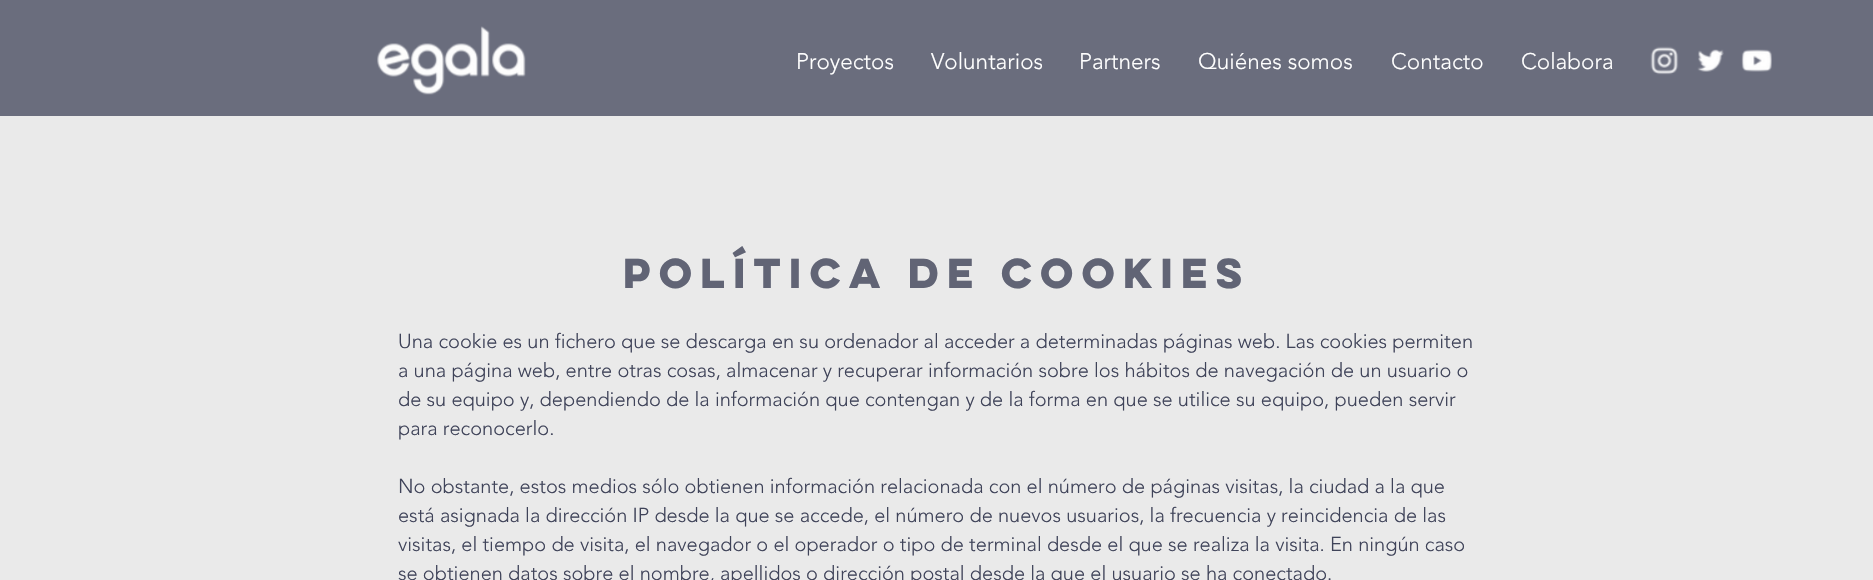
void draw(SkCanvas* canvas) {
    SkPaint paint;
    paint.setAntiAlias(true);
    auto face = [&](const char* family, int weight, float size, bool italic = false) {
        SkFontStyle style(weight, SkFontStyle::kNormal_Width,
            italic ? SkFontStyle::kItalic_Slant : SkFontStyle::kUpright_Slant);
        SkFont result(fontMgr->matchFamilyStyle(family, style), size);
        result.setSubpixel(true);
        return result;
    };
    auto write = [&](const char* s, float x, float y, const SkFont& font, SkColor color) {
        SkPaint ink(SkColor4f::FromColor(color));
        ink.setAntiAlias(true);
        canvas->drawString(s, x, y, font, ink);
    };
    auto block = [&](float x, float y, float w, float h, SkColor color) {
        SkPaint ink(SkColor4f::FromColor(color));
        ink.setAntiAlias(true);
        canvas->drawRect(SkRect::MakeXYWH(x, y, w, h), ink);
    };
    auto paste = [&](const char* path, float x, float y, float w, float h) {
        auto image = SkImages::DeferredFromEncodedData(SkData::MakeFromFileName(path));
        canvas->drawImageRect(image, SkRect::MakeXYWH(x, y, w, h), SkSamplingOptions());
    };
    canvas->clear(SkColorSetRGB(234, 234, 234));
    block(0, 0, 1873, 116, SkColorSetRGB(106, 109, 125));
    paste("pic1.png", 377, 26, 149, 69);
    auto kFont1 = face("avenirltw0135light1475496", 300, 22.5f);
    write("Proyectos", 796, 69, kFont1, SK_ColorWHITE);
    write("Voluntarios", 931, 69, kFont1, SK_ColorWHITE);
    write("Partners", 1079, 69, kFont1, SK_ColorWHITE);
    write("Quiénes somos", 1198, 69, kFont1, SK_ColorWHITE);
    write("Contacto", 1391, 69, kFont1, SK_ColorWHITE);
    write("Colabora", 1521, 69, kFont1, SK_ColorWHITE);
    paste("pic2.png", 1650, 46, 29, 29);
    paste("pic3.png", 1697, 49, 27, 23);
    paste("pic4.png", 1741, 49, 31, 23);
    auto kFont2 = face("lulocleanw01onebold", 700, 37.5f);
    write("POLÍTICA DE cookies", 623, 288, kFont2, SkColorSetRGB(97, 100, 117));
    auto kFont3 = face("avenirltw0135light1475496", 300, 20);
    write("Una cookie es un fichero que se descarga en su ordenador al acceder a determinadas páginas web. Las cookies permiten", 398, 348, kFont3, SkColorSetRGB(63, 67, 89));
    write("a una página web, entre otras cosas, almacenar y recuperar información sobre los hábitos de navegación de un usuario o", 398, 377, kFont3, SkColorSetRGB(63, 67, 89));
    write("de su equipo y, dependiendo de la información que contengan y de la forma en que se utilice su equipo, pueden servir", 398, 406, kFont3, SkColorSetRGB(63, 67, 89));
    write("para reconocerlo.", 398, 435, kFont3, SkColorSetRGB(63, 67, 89));
    write("No obstante, estos medios sólo obtienen información relacionada con el número de páginas visitas, la ciudad a la que", 398, 493, kFont3, SkColorSetRGB(63, 67, 89));
    write("está asignada la dirección IP desde la que se accede, el número de nuevos usuarios, la frecuencia y reincidencia de las", 398, 522, kFont3, SkColorSetRGB(63, 67, 89));
    write("visitas, el tiempo de visita, el navegador o el operador o tipo de terminal desde el que se realiza la visita. En ningún caso", 398, 551, kFont3, SkColorSetRGB(63, 67, 89));
    write("se obtienen datos sobre el nombre, apellidos o dirección postal desde la que el usuario se ha conectado.", 398, 580, kFont3, SkColorSetRGB(63, 67, 89));
}
